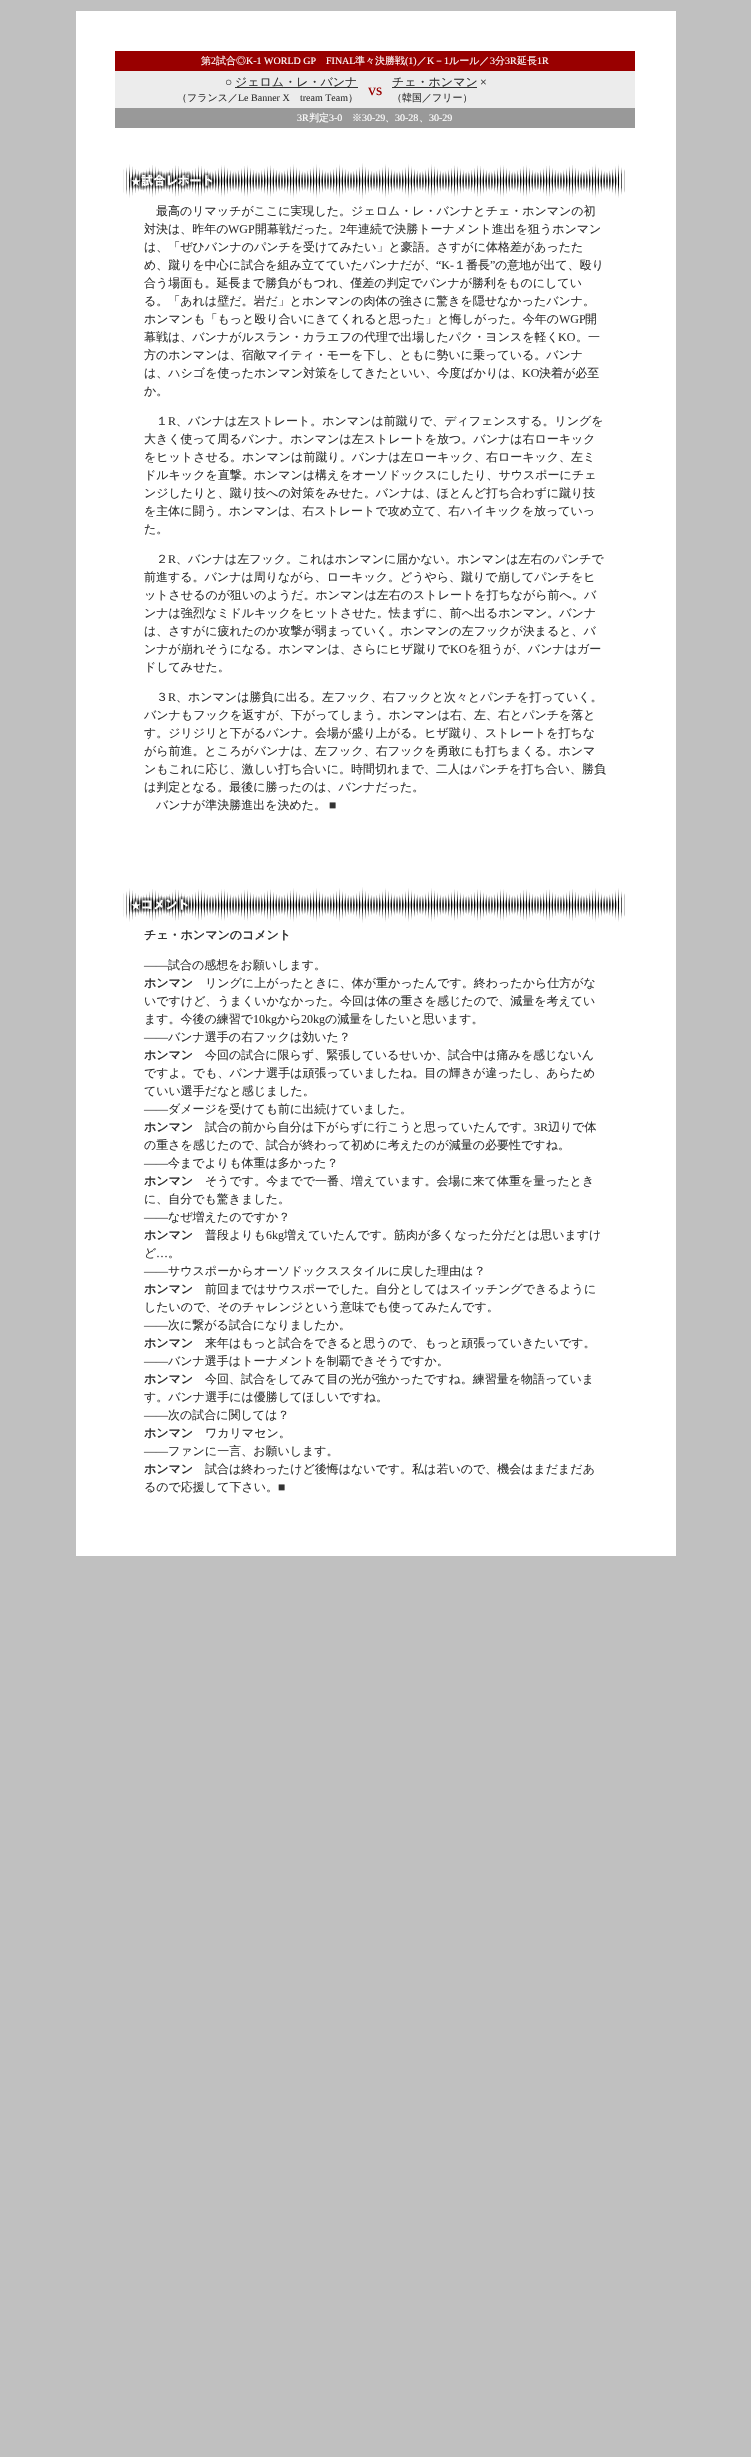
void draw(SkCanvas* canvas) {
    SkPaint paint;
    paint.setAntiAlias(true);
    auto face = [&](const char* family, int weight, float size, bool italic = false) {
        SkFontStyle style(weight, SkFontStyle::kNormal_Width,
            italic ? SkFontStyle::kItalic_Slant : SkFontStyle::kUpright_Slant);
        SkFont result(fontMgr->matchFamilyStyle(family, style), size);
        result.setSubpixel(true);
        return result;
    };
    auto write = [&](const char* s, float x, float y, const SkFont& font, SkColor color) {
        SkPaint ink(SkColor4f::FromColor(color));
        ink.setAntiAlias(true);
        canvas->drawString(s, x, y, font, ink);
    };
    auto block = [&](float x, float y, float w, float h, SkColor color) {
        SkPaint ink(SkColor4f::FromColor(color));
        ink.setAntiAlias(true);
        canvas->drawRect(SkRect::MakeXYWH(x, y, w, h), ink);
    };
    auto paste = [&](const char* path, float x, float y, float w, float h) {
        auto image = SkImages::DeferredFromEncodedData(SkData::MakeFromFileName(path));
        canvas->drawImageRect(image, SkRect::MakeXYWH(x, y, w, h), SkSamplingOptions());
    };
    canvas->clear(SkColorSetRGB(192, 192, 192));
    block(76, 11, 600, 1545, SK_ColorWHITE);
    block(115, 51, 520, 20, SkColorSetRGB(153, 0, 0));
    auto kFont1 = face("WenQuanYi Zen Hei", 500, 10);
    write("第", 201, 64, kFont1, SK_ColorWHITE);
    auto kFont2 = face("Liberation Serif", 400, 10);
    write("2", 211, 64, kFont2, SK_ColorWHITE);
    write("試合◎", 216, 64, kFont1, SK_ColorWHITE);
    write("K-1 WORLD GP", 246, 64, kFont2, SK_ColorWHITE);
    write("FINAL", 326, 64, kFont2, SK_ColorWHITE);
    write("準々決勝戦", 355, 64, kFont1, SK_ColorWHITE);
    write("(1)", 405, 64, kFont2, SK_ColorWHITE);
    write("／", 417, 64, kFont1, SK_ColorWHITE);
    write("K", 427, 64, kFont2, SK_ColorWHITE);
    write("－", 434, 64, kFont1, SK_ColorWHITE);
    write("1", 444, 64, kFont2, SK_ColorWHITE);
    write("ルール／", 449, 64, kFont1, SK_ColorWHITE);
    write("3", 490, 64, kFont2, SK_ColorWHITE);
    write("分", 495, 64, kFont1, SK_ColorWHITE);
    write("3R", 505, 64, kFont2, SK_ColorWHITE);
    write("延長", 517, 64, kFont1, SK_ColorWHITE);
    write("1R", 537, 64, kFont2, SK_ColorWHITE);
    block(115, 71, 520, 37, SkColorSetRGB(236, 236, 236));
    auto kFont3 = face("Liberation Serif", 400, 12);
    write("○", 225, 86, kFont3, SkColorSetRGB(51, 51, 51));
    block(235, 87, 123, 1, SkColorSetRGB(51, 51, 51));
    auto kFont4 = face("WenQuanYi Zen Hei", 500, 12);
    write("ジェロム・レ・バンナ", 235, 86, kFont4, SkColorSetRGB(51, 51, 51));
    write("（フランス／", 177, 101, kFont1, SkColorSetRGB(51, 51, 51));
    write("Le Banner X", 238, 101, kFont2, SkColorSetRGB(51, 51, 51));
    write("tream Team", 300, 101, kFont2, SkColorSetRGB(51, 51, 51));
    write("）", 348, 101, kFont1, SkColorSetRGB(51, 51, 51));
    auto kFont5 = face("Liberation Serif", 400, 16);
    write("vs", 368, 95, kFont5, SkColorSetRGB(153, 0, 0));
    block(392, 87, 85, 1, SkColorSetRGB(51, 51, 51));
    write("チェ・ホンマン", 392, 86, kFont4, SkColorSetRGB(51, 51, 51));
    write("×", 480, 86, kFont3, SkColorSetRGB(51, 51, 51));
    write("（韓国／フリー）", 392, 101, kFont1, SkColorSetRGB(51, 51, 51));
    block(115, 108, 520, 20, SkColorSetRGB(153, 153, 153));
    write("3R", 297, 121, kFont2, SK_ColorWHITE);
    write("判定", 309, 121, kFont1, SK_ColorWHITE);
    write("3-0", 329, 121, kFont2, SK_ColorWHITE);
    write("※", 352, 121, kFont1, SK_ColorWHITE);
    write("30-29", 362, 121, kFont2, SK_ColorWHITE);
    write("、", 385, 121, kFont1, SK_ColorWHITE);
    write("30-28", 395, 121, kFont2, SK_ColorWHITE);
    write("、", 419, 121, kFont1, SK_ColorWHITE);
    write("30-29", 429, 121, kFont2, SK_ColorWHITE);
    paste("pic1.png", 123, 163, 502, 36);
    write("最高のリマッチがここに実現した。ジェロム・レ・バンナとチェ・ホンマンの初", 156, 215, kFont4, SkColorSetRGB(51, 51, 51));
    write("対決は、昨年の", 144, 233, kFont4, SkColorSetRGB(51, 51, 51));
    write("WGP", 228, 233, kFont3, SkColorSetRGB(51, 51, 51));
    write("開幕戦だった。", 255, 233, kFont4, SkColorSetRGB(51, 51, 51));
    write("2", 340, 233, kFont3, SkColorSetRGB(51, 51, 51));
    write("年連続で決勝トーナメント進出を狙うホンマン", 346, 233, kFont4, SkColorSetRGB(51, 51, 51));
    write("は、「ぜひバンナのパンチを受けてみたい」と豪語。さすがに体格差があったた", 144, 251, kFont4, SkColorSetRGB(51, 51, 51));
    write("め、蹴りを中心に試合を組み立てていたバンナだが、", 144, 269, kFont4, SkColorSetRGB(51, 51, 51));
    write("“K-", 436, 269, kFont3, SkColorSetRGB(51, 51, 51));
    write("１番長", 454, 269, kFont4, SkColorSetRGB(51, 51, 51));
    write("”", 490, 269, kFont3, SkColorSetRGB(51, 51, 51));
    write("の意地が出て、殴り", 495, 269, kFont4, SkColorSetRGB(51, 51, 51));
    write("合う場面も。延長まで勝負がもつれ、僅差の判定でバンナが勝利をものにしてい", 144, 287, kFont4, SkColorSetRGB(51, 51, 51));
    write("る。「あれは壁だ。岩だ」とホンマンの肉体の強さに驚きを隠せなかったバンナ。", 144, 305, kFont4, SkColorSetRGB(51, 51, 51));
    write("ホンマンも「もっと殴り合いにきてくれると思った」と悔しがった。今年の", 144, 323, kFont4, SkColorSetRGB(51, 51, 51));
    write("WGP", 559, 323, kFont3, SkColorSetRGB(51, 51, 51));
    write("開", 585, 323, kFont4, SkColorSetRGB(51, 51, 51));
    write("幕戦は、バンナがルスラン・カラエフの代理で出場したパク・ヨンスを軽く", 144, 341, kFont4, SkColorSetRGB(51, 51, 51));
    write("KO", 558, 341, kFont3, SkColorSetRGB(51, 51, 51));
    write("。一", 576, 341, kFont4, SkColorSetRGB(51, 51, 51));
    write("方のホンマンは、宿敵マイティ・モーを下し、ともに勢いに乗っている。バンナ", 144, 359, kFont4, SkColorSetRGB(51, 51, 51));
    write("は、ハシゴを使ったホンマン対策をしてきたといい、今度ばかりは、", 144, 377, kFont4, SkColorSetRGB(51, 51, 51));
    write("KO", 522, 377, kFont3, SkColorSetRGB(51, 51, 51));
    write("決着が必至", 539, 377, kFont4, SkColorSetRGB(51, 51, 51));
    write("か。", 144, 395, kFont4, SkColorSetRGB(51, 51, 51));
    write("１", 156, 425, kFont4, SkColorSetRGB(51, 51, 51));
    write("R", 168, 425, kFont3, SkColorSetRGB(51, 51, 51));
    write("、バンナは左ストレート。ホンマンは前蹴りで、ディフェンスする。リングを", 176, 425, kFont4, SkColorSetRGB(51, 51, 51));
    write("大きく使って周るバンナ。ホンマンは左ストレートを放つ。バンナは右ローキック", 144, 443, kFont4, SkColorSetRGB(51, 51, 51));
    write("をヒットさせる。ホンマンは前蹴り。バンナは左ローキック、右ローキック、左ミ", 144, 461, kFont4, SkColorSetRGB(51, 51, 51));
    write("ドルキックを直撃。ホンマンは構えをオーソドックスにしたり、サウスポーにチェ", 144, 479, kFont4, SkColorSetRGB(51, 51, 51));
    write("ンジしたりと、蹴り技への対策をみせた。バンナは、ほとんど打ち合わずに蹴り技", 144, 497, kFont4, SkColorSetRGB(51, 51, 51));
    write("を主体に闘う。ホンマンは、右ストレートで攻め立て、右ハイキックを放っていっ", 144, 515, kFont4, SkColorSetRGB(51, 51, 51));
    write("た。", 144, 533, kFont4, SkColorSetRGB(51, 51, 51));
    write("２", 156, 563, kFont4, SkColorSetRGB(51, 51, 51));
    write("R", 168, 563, kFont3, SkColorSetRGB(51, 51, 51));
    write("、バンナは左フック。これはホンマンに届かない。ホンマンは左右のパンチで", 176, 563, kFont4, SkColorSetRGB(51, 51, 51));
    write("前進する。バンナは周りながら、ローキック。どうやら、蹴りで崩してパンチをヒ", 144, 581, kFont4, SkColorSetRGB(51, 51, 51));
    write("ットさせるのが狙いのようだ。ホンマンは左右のストレートを打ちながら前へ。バ", 144, 599, kFont4, SkColorSetRGB(51, 51, 51));
    write("ンナは強烈なミドルキックをヒットさせた。怯まずに、前へ出るホンマン。バンナ", 144, 617, kFont4, SkColorSetRGB(51, 51, 51));
    write("は、さすがに疲れたのか攻撃が弱まっていく。ホンマンの左フックが決まると、バ", 144, 635, kFont4, SkColorSetRGB(51, 51, 51));
    write("ンナが崩れそうになる。ホンマンは、さらにヒザ蹴りで", 144, 653, kFont4, SkColorSetRGB(51, 51, 51));
    write("KO", 450, 653, kFont3, SkColorSetRGB(51, 51, 51));
    write("を狙うが、バンナはガー", 467, 653, kFont4, SkColorSetRGB(51, 51, 51));
    write("ドしてみせた。", 144, 671, kFont4, SkColorSetRGB(51, 51, 51));
    write("３", 156, 701, kFont4, SkColorSetRGB(51, 51, 51));
    write("R", 168, 701, kFont3, SkColorSetRGB(51, 51, 51));
    write("、ホンマンは勝負に出る。左フック、右フックと次々とパンチを打っていく。", 176, 701, kFont4, SkColorSetRGB(51, 51, 51));
    write("バンナもフックを返すが、下がってしまう。ホンマンは右、左、右とパンチを落と", 144, 719, kFont4, SkColorSetRGB(51, 51, 51));
    write("す。ジリジリと下がるバンナ。会場が盛り上がる。ヒザ蹴り、ストレートを打ちな", 144, 737, kFont4, SkColorSetRGB(51, 51, 51));
    write("がら前進。ところがバンナは、左フック、右フックを勇敢にも打ちまくる。ホンマ", 144, 755, kFont4, SkColorSetRGB(51, 51, 51));
    write("ンもこれに応じ、激しい打ち合いに。時間切れまで、二人はパンチを打ち合い、勝負", 144, 773, kFont4, SkColorSetRGB(51, 51, 51));
    write("は判定となる。最後に勝ったのは、バンナだった。", 144, 791, kFont4, SkColorSetRGB(51, 51, 51));
    write("バンナが準決勝進出を決めた。", 156, 809, kFont4, SkColorSetRGB(51, 51, 51));
    write("■", 329, 809, kFont3, SkColorSetRGB(51, 51, 51));
    paste("pic2.png", 123, 887, 502, 36);
    auto kFont6 = face("WenQuanYi Zen Hei", 700, 12);
    write("チェ・ホンマンのコメント", 144, 939, kFont6, SkColorSetRGB(51, 51, 51));
    write("――", 144, 969, kFont3, SkColorSetRGB(51, 51, 51));
    write("試合の感想をお願いします。", 168, 969, kFont4, SkColorSetRGB(51, 51, 51));
    write("ホンマン", 144, 987, kFont6, SkColorSetRGB(51, 51, 51));
    write("リングに上がったときに、体が重かったんです。終わったから仕方がな", 205, 987, kFont4, SkColorSetRGB(51, 51, 51));
    write("いですけど、うまくいかなかった。今回は体の重さを感じたので、減量を考えてい", 144, 1005, kFont4, SkColorSetRGB(51, 51, 51));
    write("ます。今後の練習で", 144, 1023, kFont4, SkColorSetRGB(51, 51, 51));
    write("10kg", 253, 1023, kFont3, SkColorSetRGB(51, 51, 51));
    write("から", 277, 1023, kFont4, SkColorSetRGB(51, 51, 51));
    write("20kg", 301, 1023, kFont3, SkColorSetRGB(51, 51, 51));
    write("の減量をしたいと思います。", 325, 1023, kFont4, SkColorSetRGB(51, 51, 51));
    write("――", 144, 1041, kFont3, SkColorSetRGB(51, 51, 51));
    write("バンナ選手の右フックは効いた？", 168, 1041, kFont4, SkColorSetRGB(51, 51, 51));
    write("ホンマン", 144, 1059, kFont6, SkColorSetRGB(51, 51, 51));
    write("今回の試合に限らず、緊張しているせいか、試合中は痛みを感じないん", 205, 1059, kFont4, SkColorSetRGB(51, 51, 51));
    write("ですよ。でも、バンナ選手は頑張っていましたね。目の輝きが違ったし、あらため", 144, 1077, kFont4, SkColorSetRGB(51, 51, 51));
    write("ていい選手だなと感じました。", 144, 1095, kFont4, SkColorSetRGB(51, 51, 51));
    write("――", 144, 1113, kFont3, SkColorSetRGB(51, 51, 51));
    write("ダメージを受けても前に出続けていました。", 168, 1113, kFont4, SkColorSetRGB(51, 51, 51));
    write("ホンマン", 144, 1131, kFont6, SkColorSetRGB(51, 51, 51));
    write("試合の前から自分は下がらずに行こうと思っていたんです。", 205, 1131, kFont4, SkColorSetRGB(51, 51, 51));
    write("3R", 534, 1131, kFont3, SkColorSetRGB(51, 51, 51));
    write("辺りで体", 548, 1131, kFont4, SkColorSetRGB(51, 51, 51));
    write("の重さを感じたので、試合が終わって初めに考えたのが減量の必要性ですね。", 144, 1149, kFont4, SkColorSetRGB(51, 51, 51));
    write("――", 144, 1167, kFont3, SkColorSetRGB(51, 51, 51));
    write("今までよりも体重は多かった？", 168, 1167, kFont4, SkColorSetRGB(51, 51, 51));
    write("ホンマン", 144, 1185, kFont6, SkColorSetRGB(51, 51, 51));
    write("そうです。今までで一番、増えています。会場に来て体重を量ったとき", 205, 1185, kFont4, SkColorSetRGB(51, 51, 51));
    write("に、自分でも驚きました。", 144, 1203, kFont4, SkColorSetRGB(51, 51, 51));
    write("――", 144, 1221, kFont3, SkColorSetRGB(51, 51, 51));
    write("なぜ増えたのですか？", 168, 1221, kFont4, SkColorSetRGB(51, 51, 51));
    write("ホンマン", 144, 1239, kFont6, SkColorSetRGB(51, 51, 51));
    write("普段よりも", 205, 1239, kFont4, SkColorSetRGB(51, 51, 51));
    write("6kg", 266, 1239, kFont3, SkColorSetRGB(51, 51, 51));
    write("増えていたんです。筋肉が多くなった分だとは思いますけ", 284, 1239, kFont4, SkColorSetRGB(51, 51, 51));
    write("ど", 144, 1257, kFont4, SkColorSetRGB(51, 51, 51));
    write("…", 156, 1257, kFont3, SkColorSetRGB(51, 51, 51));
    write("。", 168, 1257, kFont4, SkColorSetRGB(51, 51, 51));
    write("――", 144, 1275, kFont3, SkColorSetRGB(51, 51, 51));
    write("サウスポーからオーソドックススタイルに戻した理由は？", 168, 1275, kFont4, SkColorSetRGB(51, 51, 51));
    write("ホンマン", 144, 1293, kFont6, SkColorSetRGB(51, 51, 51));
    write("前回まではサウスポーでした。自分としてはスイッチングできるように", 205, 1293, kFont4, SkColorSetRGB(51, 51, 51));
    write("したいので、そのチャレンジという意味でも使ってみたんです。", 144, 1311, kFont4, SkColorSetRGB(51, 51, 51));
    write("――", 144, 1329, kFont3, SkColorSetRGB(51, 51, 51));
    write("次に繋がる試合になりましたか。", 168, 1329, kFont4, SkColorSetRGB(51, 51, 51));
    write("ホンマン", 144, 1347, kFont6, SkColorSetRGB(51, 51, 51));
    write("来年はもっと試合をできると思うので、もっと頑張っていきたいです。", 205, 1347, kFont4, SkColorSetRGB(51, 51, 51));
    write("――", 144, 1365, kFont3, SkColorSetRGB(51, 51, 51));
    write("バンナ選手はトーナメントを制覇できそうですか。", 168, 1365, kFont4, SkColorSetRGB(51, 51, 51));
    write("ホンマン", 144, 1383, kFont6, SkColorSetRGB(51, 51, 51));
    write("今回、試合をしてみて目の光が強かったですね。練習量を物語っていま", 205, 1383, kFont4, SkColorSetRGB(51, 51, 51));
    write("す。バンナ選手には優勝してほしいですね。", 144, 1401, kFont4, SkColorSetRGB(51, 51, 51));
    write("――", 144, 1419, kFont3, SkColorSetRGB(51, 51, 51));
    write("次の試合に関しては？", 168, 1419, kFont4, SkColorSetRGB(51, 51, 51));
    write("ホンマン", 144, 1437, kFont6, SkColorSetRGB(51, 51, 51));
    write("ワカリマセン。", 205, 1437, kFont4, SkColorSetRGB(51, 51, 51));
    write("――", 144, 1455, kFont3, SkColorSetRGB(51, 51, 51));
    write("ファンに一言、お願いします。", 168, 1455, kFont4, SkColorSetRGB(51, 51, 51));
    write("ホンマン", 144, 1473, kFont6, SkColorSetRGB(51, 51, 51));
    write("試合は終わったけど後悔はないです。私は若いので、機会はまだまだあ", 205, 1473, kFont4, SkColorSetRGB(51, 51, 51));
    write("るので応援して下さい。", 144, 1491, kFont4, SkColorSetRGB(51, 51, 51));
    write("■", 278, 1491, kFont3, SkColorSetRGB(51, 51, 51));
}
